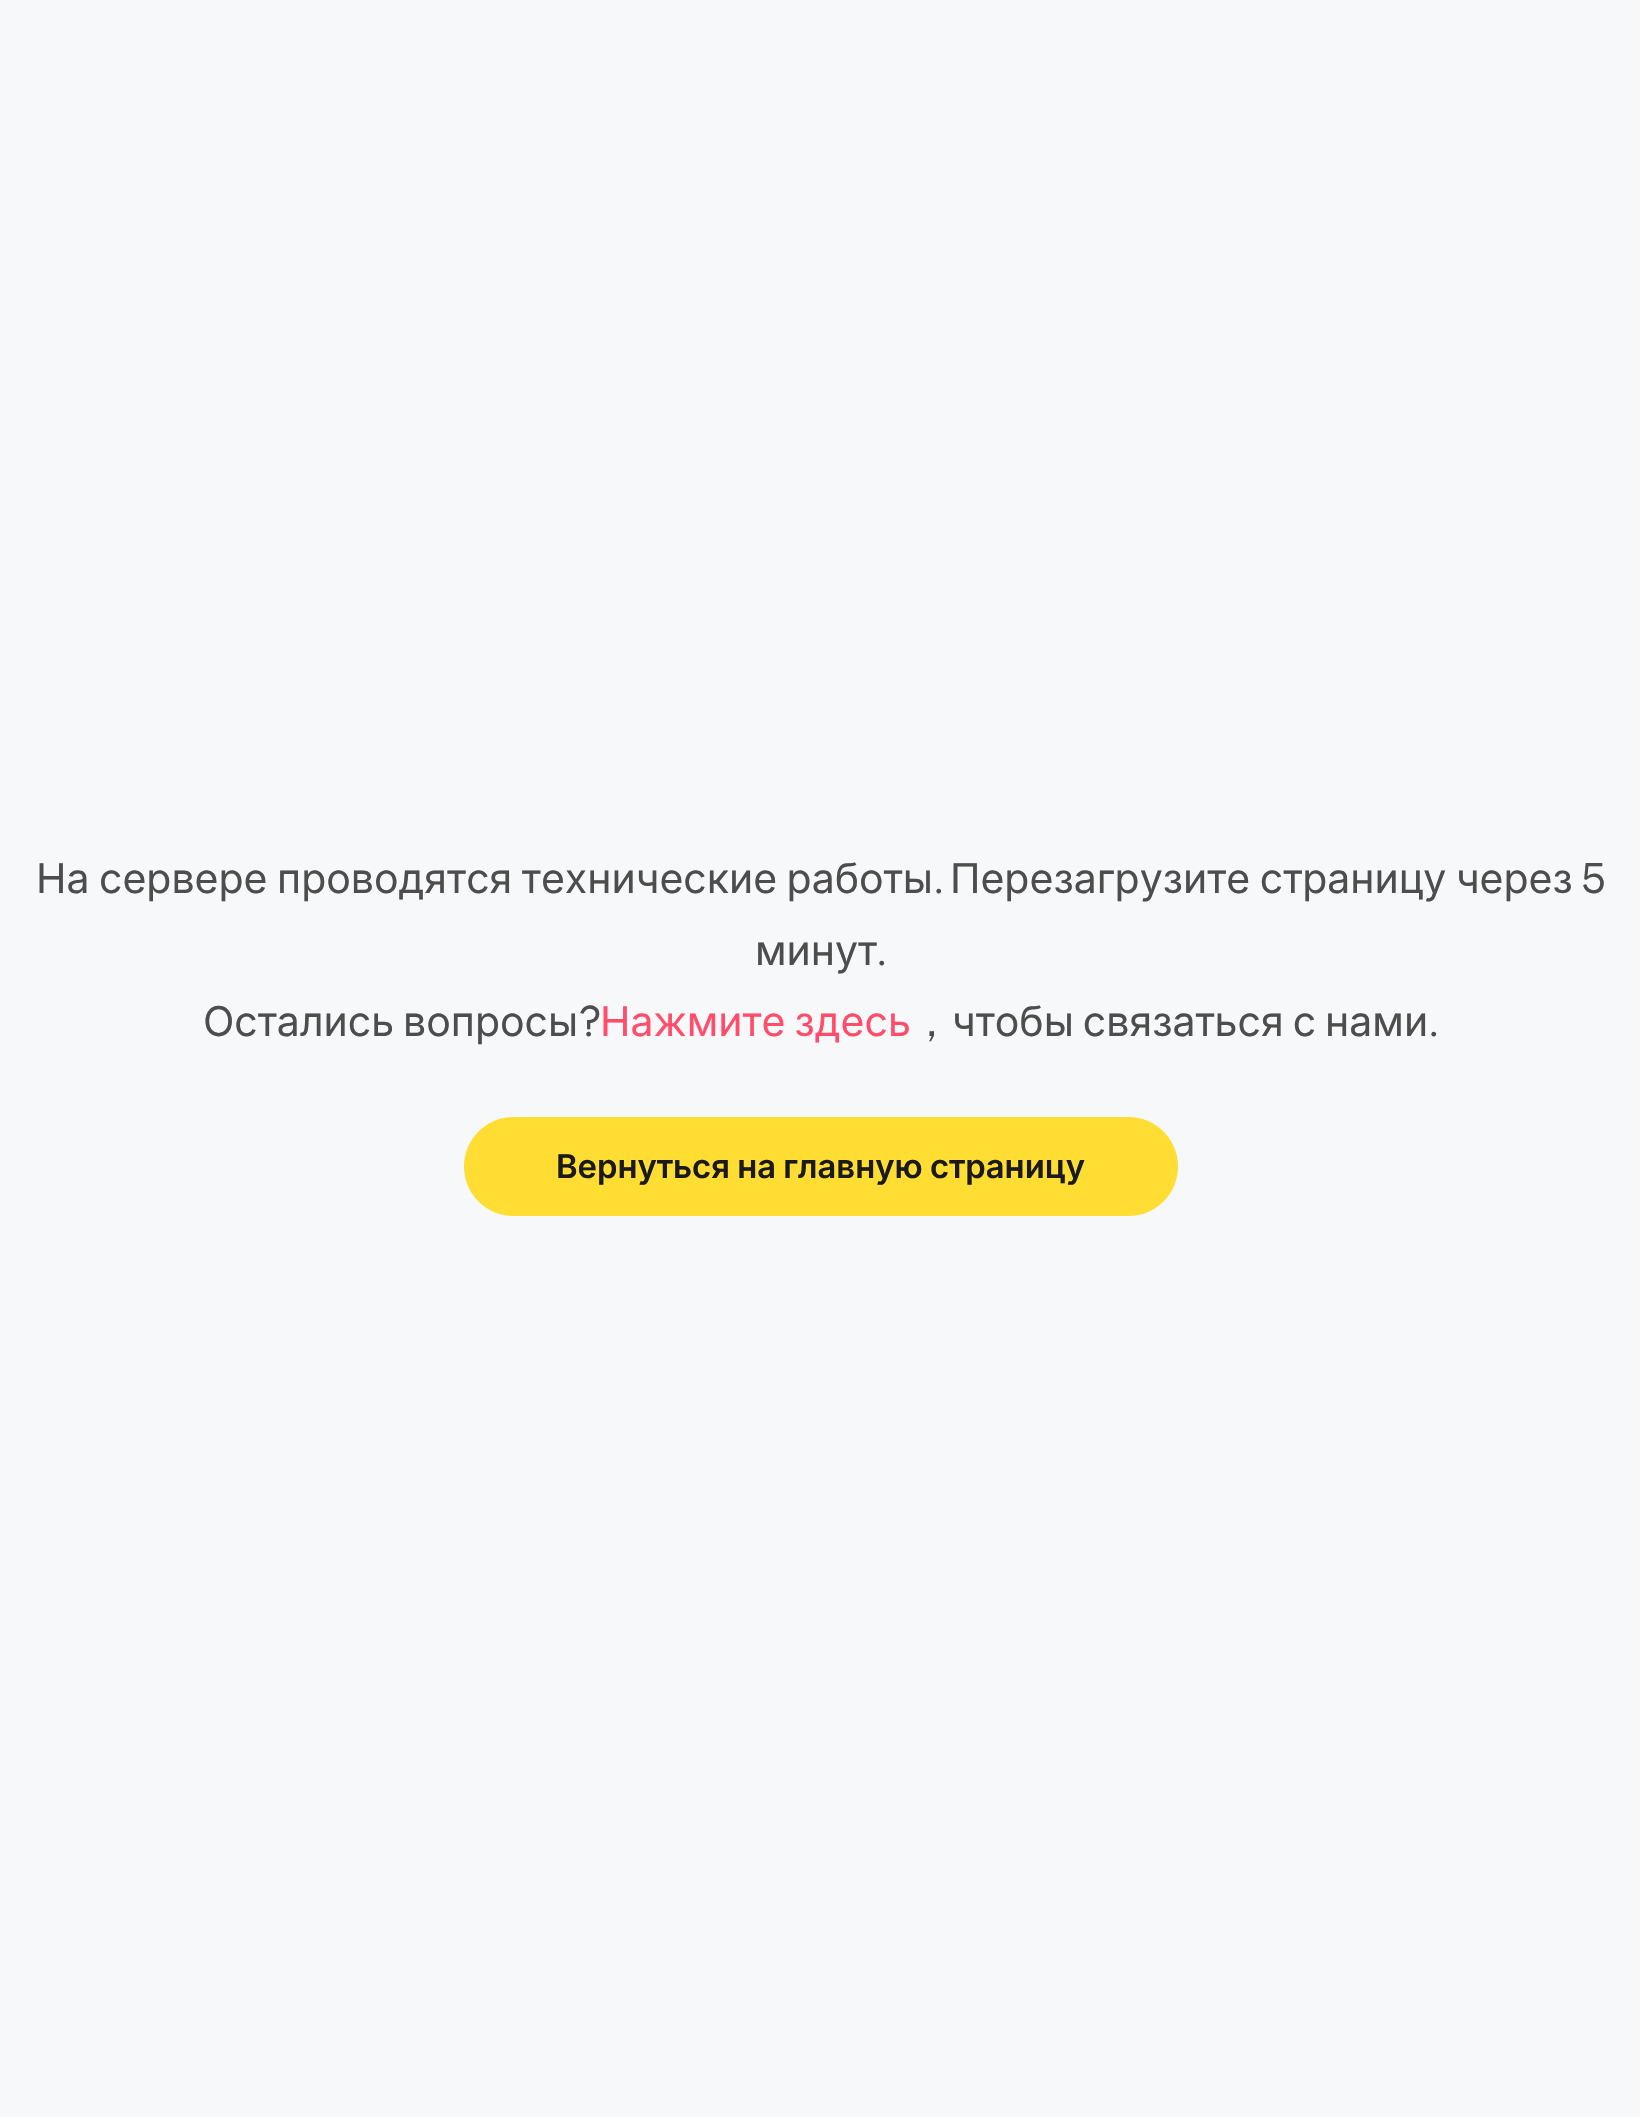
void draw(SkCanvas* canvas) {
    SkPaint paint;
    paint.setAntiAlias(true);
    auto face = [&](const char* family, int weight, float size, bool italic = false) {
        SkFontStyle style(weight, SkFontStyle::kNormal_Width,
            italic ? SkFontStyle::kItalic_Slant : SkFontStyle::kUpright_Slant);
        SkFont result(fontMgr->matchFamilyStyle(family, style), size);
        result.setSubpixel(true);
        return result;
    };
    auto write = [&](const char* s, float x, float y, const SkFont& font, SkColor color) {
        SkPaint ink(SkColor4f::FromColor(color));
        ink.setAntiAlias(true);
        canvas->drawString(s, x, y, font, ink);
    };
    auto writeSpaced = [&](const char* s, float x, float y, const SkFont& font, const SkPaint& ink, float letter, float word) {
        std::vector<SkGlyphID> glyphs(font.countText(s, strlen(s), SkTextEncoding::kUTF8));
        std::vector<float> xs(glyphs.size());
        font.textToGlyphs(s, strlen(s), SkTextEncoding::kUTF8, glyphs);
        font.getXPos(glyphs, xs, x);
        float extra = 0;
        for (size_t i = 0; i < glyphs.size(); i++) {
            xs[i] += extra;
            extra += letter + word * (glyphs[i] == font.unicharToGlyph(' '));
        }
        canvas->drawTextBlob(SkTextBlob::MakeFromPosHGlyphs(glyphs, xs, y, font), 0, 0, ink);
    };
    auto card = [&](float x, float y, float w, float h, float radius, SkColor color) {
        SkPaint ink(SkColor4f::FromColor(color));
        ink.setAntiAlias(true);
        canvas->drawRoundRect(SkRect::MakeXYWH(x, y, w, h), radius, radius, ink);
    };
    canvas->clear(SkColorSetRGB(247, 248, 250));
    auto kFont1 = face("Inter", 400, 41);
    paint.setColor(SkColorSetRGB(77, 77, 77));
    writeSpaced("На сервере проводятся технические работы", 36, 893, kFont1, paint, 0, -2);
    auto kFont2 = face("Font", 400, 41);
    write(".", 934, 893, kFont2, SkColorSetRGB(77, 77, 77));
    writeSpaced("Перезагрузите страницу через", 950, 893, kFont1, paint, 0, -2);
    write("5", 1581, 893, kFont2, SkColorSetRGB(77, 77, 77));
    write("минут", 755, 965, kFont1, SkColorSetRGB(77, 77, 77));
    write(".", 877, 965, kFont2, SkColorSetRGB(77, 77, 77));
    writeSpaced("Остались вопросы", 203, 1036, kFont1, paint, 0, -2.5f);
    write("?", 579, 1036, kFont2, SkColorSetRGB(77, 77, 77));
    paint.setColor(SkColorSetRGB(255, 77, 106));
    writeSpaced("Нажмите здесь", 600, 1036, kFont1, paint, 0, -2.5f);
    auto kFont3 = face("WenQuanYi Zen Hei", 500, 41);
    write("，", 911, 1036, kFont3, SkColorSetRGB(77, 77, 77));
    paint.setColor(SkColorSetRGB(77, 77, 77));
    writeSpaced("чтобы связаться с нами", 952, 1036, kFont1, paint, 0, -2.5f);
    write(".", 1429, 1036, kFont2, SkColorSetRGB(77, 77, 77));
    card(464, 1117, 714, 99, 49.5f, SkColorSetRGB(255, 221, 51));
    auto kFont4 = face("Inter", 600, 32.8f);
    paint.setColor(SkColorSetRGB(26, 26, 26));
    writeSpaced("Вернуться на главную страницу", 556, 1178, kFont4, paint, 0, -1);
}
